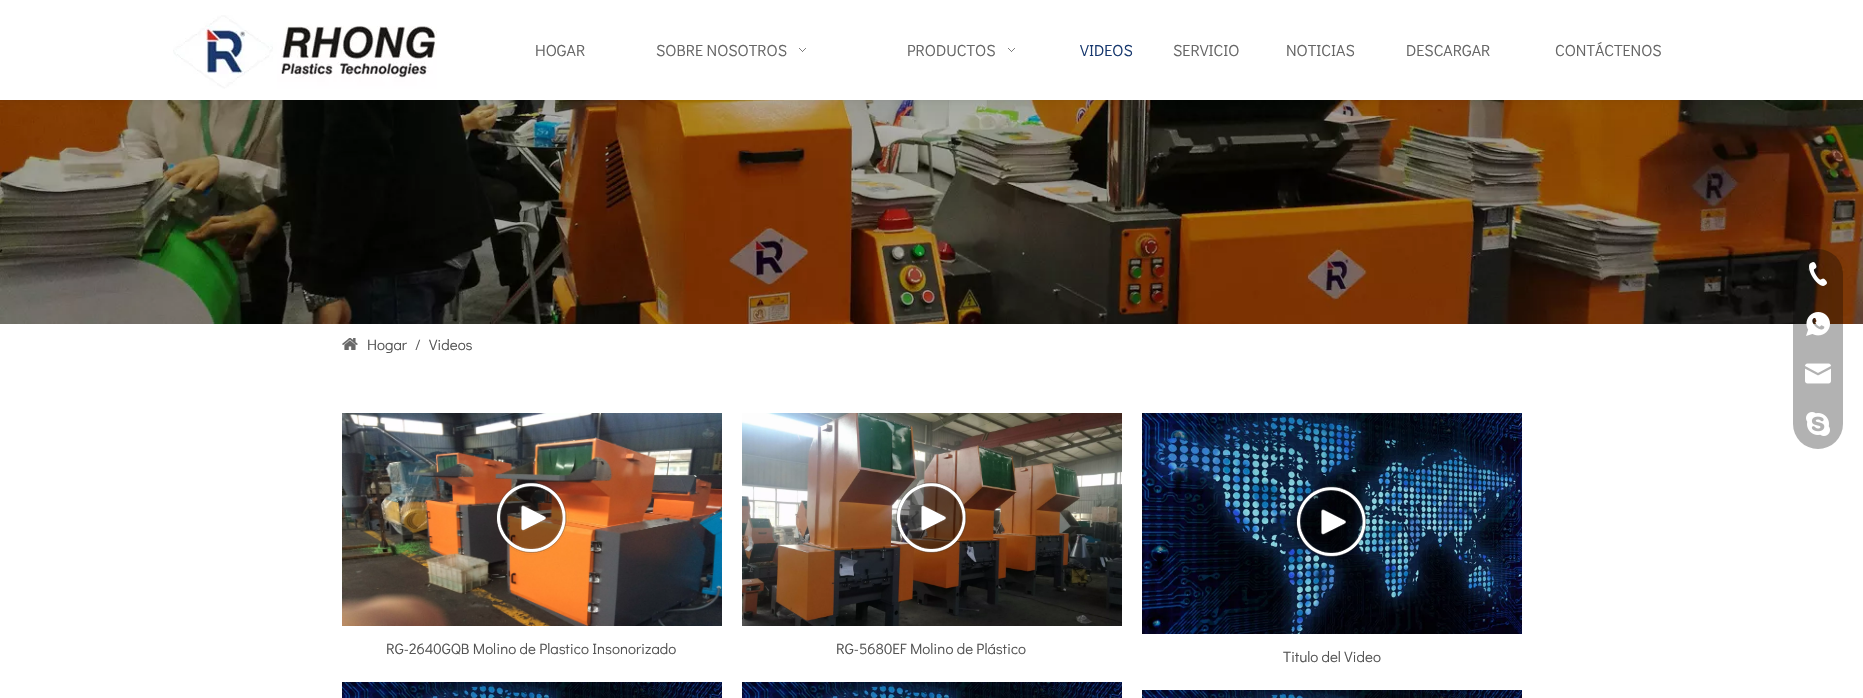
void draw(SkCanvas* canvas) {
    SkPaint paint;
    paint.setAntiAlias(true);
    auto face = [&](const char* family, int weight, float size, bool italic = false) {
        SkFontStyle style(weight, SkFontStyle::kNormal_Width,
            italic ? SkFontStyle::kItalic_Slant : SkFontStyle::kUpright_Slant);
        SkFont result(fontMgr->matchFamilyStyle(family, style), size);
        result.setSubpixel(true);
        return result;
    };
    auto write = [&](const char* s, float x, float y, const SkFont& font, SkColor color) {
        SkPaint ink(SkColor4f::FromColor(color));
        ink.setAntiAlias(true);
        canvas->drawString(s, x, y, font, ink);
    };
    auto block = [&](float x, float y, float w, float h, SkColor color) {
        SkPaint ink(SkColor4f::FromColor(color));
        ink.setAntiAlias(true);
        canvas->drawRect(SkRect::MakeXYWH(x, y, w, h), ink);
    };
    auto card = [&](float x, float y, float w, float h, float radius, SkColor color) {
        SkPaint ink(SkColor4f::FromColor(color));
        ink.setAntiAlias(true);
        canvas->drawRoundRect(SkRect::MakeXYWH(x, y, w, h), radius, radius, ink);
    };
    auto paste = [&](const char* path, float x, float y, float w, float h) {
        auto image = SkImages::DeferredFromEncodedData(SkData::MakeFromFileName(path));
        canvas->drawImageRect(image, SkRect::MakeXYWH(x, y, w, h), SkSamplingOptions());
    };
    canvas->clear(SK_ColorWHITE);
    paste("pic3.png", 0, 100, 1863, 224);
    paint.setColor(SkColorSetARGB(20, 0, 0, 0));
    paint.setMaskFilter(SkMaskFilter::MakeBlur(kNormal_SkBlurStyle, 3.5f));
    canvas->drawRect(SkRect::MakeXYWH(1, 1, 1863, 100), paint);
    paint.setMaskFilter(nullptr);
    block(0, 0, 1863, 100, SK_ColorWHITE);
    paste("pic1.png", 173, 15, 264, 74);
    auto kFont1 = face("Didact Gothic", 400, 16);
    write("HOGAR", 535, 56, kFont1, SkColorSetRGB(102, 102, 102));
    write("SOBRE NOSOTROS", 656, 56, kFont1, SkColorSetRGB(102, 102, 102));
    paste("pic2.png", 799, 48, 7, 4);
    write("PRODUCTOS", 907, 56, kFont1, SkColorSetRGB(102, 102, 102));
    paste("pic2.png", 1008, 48, 7, 4);
    write("VIDEOS", 1080, 56, kFont1, SkColorSetRGB(23, 56, 110));
    write("SERVICIO", 1173, 56, kFont1, SkColorSetRGB(102, 102, 102));
    write("NOTICIAS", 1286, 56, kFont1, SkColorSetRGB(102, 102, 102));
    write("DESCARGAR", 1406, 56, kFont1, SkColorSetRGB(102, 102, 102));
    write("CONTÁCTENOS", 1555, 56, kFont1, SkColorSetRGB(102, 102, 102));
    paste("pic4.png", 342, 338, 16, 12);
    auto kFont2 = face("Didact Gothic", 400, 15);
    write("Hogar", 367, 350, kFont2, SkColorSetRGB(84, 84, 84));
    write("/", 415, 350, kFont2, SkColorSetRGB(84, 84, 84));
    write("Videos", 429, 350, kFont2, SkColorSetRGB(84, 84, 84));
    paste("pic5.png", 342, 413, 380, 213);
    paste("pic6.png", 496, 482, 73, 73);
    write("RG-2640GQB Molino de Plastico Insonorizado", 386, 654, kFont2, SkColorSetRGB(84, 84, 84));
    paste("pic7.png", 342, 682, 380, 16);
    paste("pic8.png", 742, 413, 380, 213);
    paste("pic9.png", 893, 480, 74, 73);
    write("RG-5680EF Molino de Plástico", 836, 654, kFont2, SkColorSetRGB(84, 84, 84));
    paste("pic10.png", 742, 682, 380, 16);
    paste("pic11.png", 1142, 413, 380, 221);
    paste("pic12.png", 1296, 486, 73, 71);
    write("Titulo del Video", 1283, 662, kFont2, SkColorSetRGB(84, 84, 84));
    paste("pic13.png", 1142, 690, 380, 8);
    card(1793, 249, 50, 200, 25, SkColorSetARGB(77, 0, 0, 0));
    paste("pic14.png", 1809, 262, 18, 24);
    paste("pic15.png", 1806, 312, 24, 24);
    paste("pic16.png", 1805, 363, 26, 21);
    paste("pic17.png", 1806, 412, 24, 24);
}
